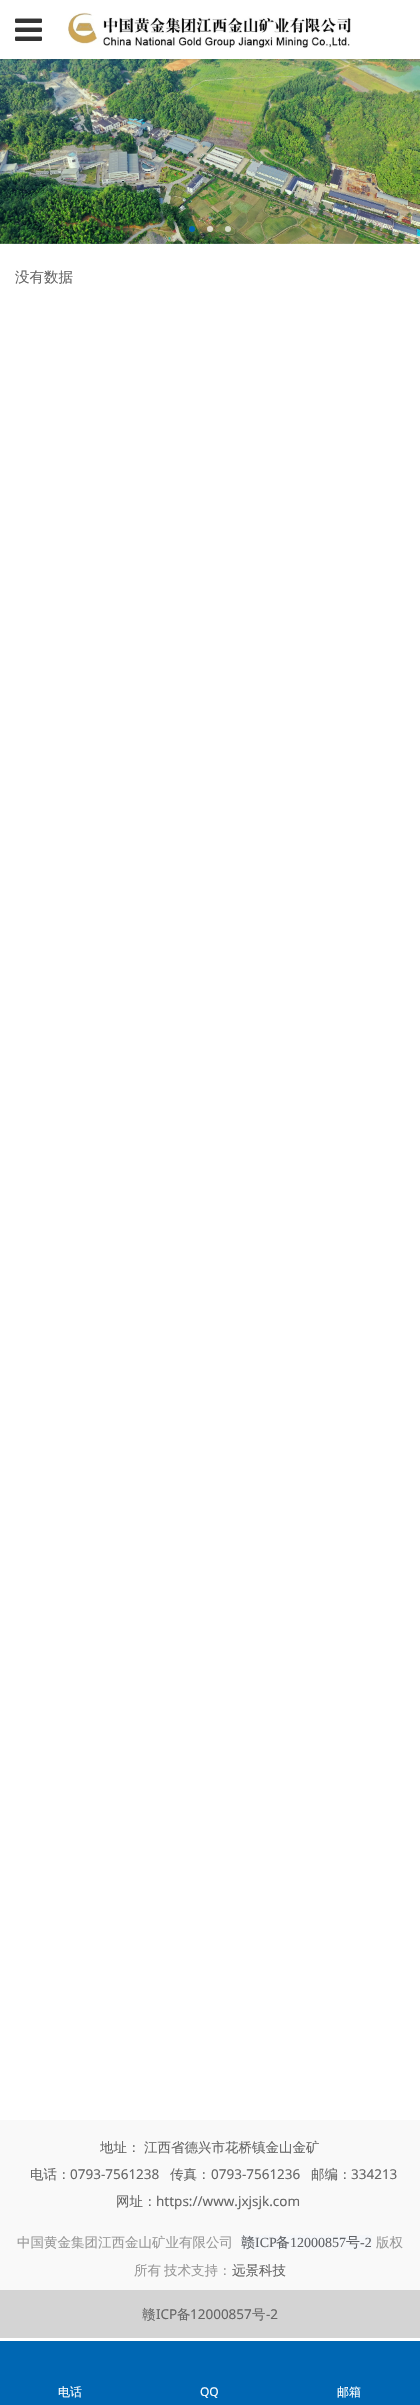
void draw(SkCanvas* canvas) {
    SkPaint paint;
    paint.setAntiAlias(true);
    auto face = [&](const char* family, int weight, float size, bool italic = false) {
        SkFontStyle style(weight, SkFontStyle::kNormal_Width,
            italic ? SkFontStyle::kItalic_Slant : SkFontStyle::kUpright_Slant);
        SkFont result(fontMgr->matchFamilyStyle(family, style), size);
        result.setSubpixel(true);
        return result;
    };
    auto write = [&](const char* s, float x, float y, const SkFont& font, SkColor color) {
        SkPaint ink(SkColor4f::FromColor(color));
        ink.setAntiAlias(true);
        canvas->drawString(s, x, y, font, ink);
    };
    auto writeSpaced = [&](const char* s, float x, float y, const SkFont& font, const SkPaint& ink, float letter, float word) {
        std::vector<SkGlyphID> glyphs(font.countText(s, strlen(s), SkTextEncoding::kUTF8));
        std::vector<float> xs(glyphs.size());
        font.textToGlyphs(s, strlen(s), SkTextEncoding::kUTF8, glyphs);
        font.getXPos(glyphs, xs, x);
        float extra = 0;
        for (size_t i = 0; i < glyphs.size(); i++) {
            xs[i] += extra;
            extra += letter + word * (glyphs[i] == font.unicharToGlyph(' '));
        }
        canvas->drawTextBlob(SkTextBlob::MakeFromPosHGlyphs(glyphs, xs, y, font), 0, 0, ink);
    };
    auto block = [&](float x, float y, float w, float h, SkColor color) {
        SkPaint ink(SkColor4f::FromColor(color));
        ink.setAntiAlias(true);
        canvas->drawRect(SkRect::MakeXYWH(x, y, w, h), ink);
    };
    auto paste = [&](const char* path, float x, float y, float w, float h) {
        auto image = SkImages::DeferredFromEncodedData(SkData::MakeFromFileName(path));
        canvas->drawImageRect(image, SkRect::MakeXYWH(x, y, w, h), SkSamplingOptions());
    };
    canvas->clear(SK_ColorWHITE);
    paste("pic3.png", 0, 59, 420, 185);
    canvas->save();
    canvas->clipRect(SkRect::MakeXYWH(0, 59, 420, 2));
    paint.setColor(SkColorSetARGB(26, 0, 0, 0));
    paint.setMaskFilter(SkMaskFilter::MakeBlur(kNormal_SkBlurStyle, 1));
    canvas->drawRect(SkRect::MakeXYWH(0, 1, 420, 59), paint);
    paint.setMaskFilter(nullptr);
    canvas->restore();
    paste("pic1.png", 15, 18, 27, 23);
    paste("pic2.png", 68, 12, 283, 36);
    paint.setColor(SkColorSetRGB(0, 103, 179));
    canvas->drawCircle(192, 229, 3, paint);
    paint.setColor(SkColorSetARGB(179, 255, 255, 255));
    canvas->drawCircle(210, 229, 3, paint);
    canvas->drawCircle(228, 229, 3, paint);
    auto kFont1 = face("WenQuanYi Zen Hei", 500, 14.5f);
    write("没有数据", 15, 282, kFont1, SkColorSetRGB(102, 102, 102));
    block(0, 2120, 420, 170, SkColorSetRGB(249, 249, 249));
    auto kFont2 = face("WenQuanYi Zen Hei", 500, 13.5f);
    write("地址：", 100, 2152, kFont2, SkColorSetRGB(102, 102, 102));
    write("江西省德兴市花桥镇金山金矿", 144, 2152, kFont2, SkColorSetRGB(102, 102, 102));
    write("电话：", 30, 2179, kFont2, SkColorSetRGB(102, 102, 102));
    auto kFont3 = face("Noto Sans", 400, 13.5f);
    write("0793-7561238", 70, 2179, kFont3, SkColorSetRGB(102, 102, 102));
    write("传真：", 170, 2179, kFont2, SkColorSetRGB(102, 102, 102));
    write("0793-7561236", 211, 2179, kFont3, SkColorSetRGB(102, 102, 102));
    write("邮编：", 311, 2179, kFont2, SkColorSetRGB(102, 102, 102));
    write("334213", 351, 2179, kFont3, SkColorSetRGB(102, 102, 102));
    write("网址：", 116, 2206, kFont2, SkColorSetRGB(102, 102, 102));
    write("https://www.jxjsjk.com", 156, 2206, kFont3, SkColorSetRGB(102, 102, 102));
    write("中国黄金集团江西金山矿业有限公司", 17, 2247, kFont2, SkColorSetRGB(153, 153, 153));
    block(241, 2235, 131, 15, SkColorSetRGB(245, 247, 250));
    auto kFont4 = face("WenQuanYi Zen Hei", 500, 14);
    write("赣", 241, 2247, kFont4, SkColorSetRGB(96, 98, 102));
    auto kFont5 = face("Liberation Serif", 400, 14);
    write("ICP", 255, 2247, kFont5, SkColorSetRGB(96, 98, 102));
    write("备", 276, 2247, kFont4, SkColorSetRGB(96, 98, 102));
    write("12000857", 290, 2247, kFont5, SkColorSetRGB(96, 98, 102));
    write("号", 346, 2247, kFont4, SkColorSetRGB(96, 98, 102));
    write("-2", 360, 2247, kFont5, SkColorSetRGB(96, 98, 102));
    write("版权", 376, 2247, kFont2, SkColorSetRGB(153, 153, 153));
    paint.setColor(SkColorSetRGB(153, 153, 153));
    writeSpaced("所有 技术支持：", 134, 2275, kFont2, paint, 0, -1);
    write("远景科技", 232, 2275, kFont2, SkColorSetRGB(102, 102, 102));
    block(0, 2290, 420, 48, SkColorSetRGB(212, 212, 212));
    write("赣", 142, 2319, kFont2, SkColorSetRGB(102, 102, 102));
    write("ICP", 156, 2319, kFont3, SkColorSetRGB(102, 102, 102));
    write("备", 177, 2319, kFont2, SkColorSetRGB(102, 102, 102));
    write("12000857", 190, 2319, kFont3, SkColorSetRGB(102, 102, 102));
    write("号", 252, 2319, kFont2, SkColorSetRGB(102, 102, 102));
    write("-2", 266, 2319, kFont3, SkColorSetRGB(102, 102, 102));
    block(0, 2341, 420, 64, SkColorSetRGB(0, 103, 179));
    auto kFont6 = face("WenQuanYi Zen Hei", 500, 12);
    write("电话", 58, 2396, kFont6, SK_ColorWHITE);
    auto kFont7 = face("Noto Sans", 400, 12);
    write("QQ", 200, 2396, kFont7, SK_ColorWHITE);
    write("邮箱", 337, 2396, kFont6, SK_ColorWHITE);
}
